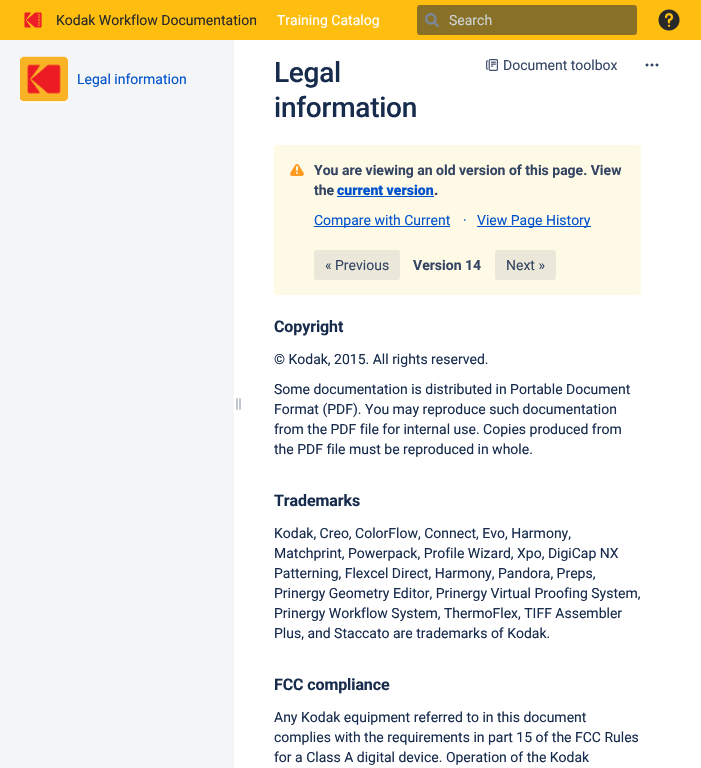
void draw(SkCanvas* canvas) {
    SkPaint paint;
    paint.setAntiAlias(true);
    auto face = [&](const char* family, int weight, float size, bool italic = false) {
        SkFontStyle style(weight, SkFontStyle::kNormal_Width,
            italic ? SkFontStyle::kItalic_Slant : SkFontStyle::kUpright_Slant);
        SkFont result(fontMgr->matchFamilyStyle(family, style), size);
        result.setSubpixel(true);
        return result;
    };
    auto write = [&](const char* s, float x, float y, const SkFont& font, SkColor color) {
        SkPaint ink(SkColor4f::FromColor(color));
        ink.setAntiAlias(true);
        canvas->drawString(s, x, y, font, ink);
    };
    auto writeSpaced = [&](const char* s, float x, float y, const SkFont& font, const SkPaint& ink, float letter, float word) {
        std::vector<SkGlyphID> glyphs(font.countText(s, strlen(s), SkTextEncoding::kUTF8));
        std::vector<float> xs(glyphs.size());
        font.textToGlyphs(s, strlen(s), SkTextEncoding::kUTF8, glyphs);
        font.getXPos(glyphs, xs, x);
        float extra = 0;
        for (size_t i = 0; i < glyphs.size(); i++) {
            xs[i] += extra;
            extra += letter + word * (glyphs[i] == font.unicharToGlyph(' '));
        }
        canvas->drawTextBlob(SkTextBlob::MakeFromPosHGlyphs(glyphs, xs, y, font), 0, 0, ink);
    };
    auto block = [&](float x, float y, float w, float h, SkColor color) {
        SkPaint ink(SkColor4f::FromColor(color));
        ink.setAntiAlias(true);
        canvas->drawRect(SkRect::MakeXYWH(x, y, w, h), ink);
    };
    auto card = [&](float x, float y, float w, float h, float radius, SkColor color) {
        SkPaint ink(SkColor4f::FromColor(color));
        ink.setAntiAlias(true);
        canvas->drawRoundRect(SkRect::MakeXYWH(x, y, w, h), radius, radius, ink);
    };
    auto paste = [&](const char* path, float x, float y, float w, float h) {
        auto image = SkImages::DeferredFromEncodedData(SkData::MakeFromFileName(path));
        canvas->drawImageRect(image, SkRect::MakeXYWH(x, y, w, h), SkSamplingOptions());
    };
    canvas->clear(SkColorSetRGB(244, 245, 247));
    block(0, 0, 701, 40, SkColorSetRGB(253, 190, 15));
    paste("pic1.png", 24, 12, 18, 16);
    auto kFont1 = face("Roboto", 400, 14);
    write("Kodak Workflow Documentation", 56, 25, kFont1, SkColorSetRGB(41, 41, 41));
    write("Training Catalog", 277, 25, kFont1, SK_ColorWHITE);
    card(417, 5, 220, 30, 3, SkColorSetRGB(136, 113, 39));
    paste("pic2.png", 425, 13, 14, 14);
    write("Search", 449, 25, kFont1, SkColorSetRGB(205, 211, 212));
    paste("pic3.png", 658, 9, 22, 22);
    card(20, 55, 48, 48, 3, SK_ColorWHITE);
    paste("pic4.png", 20, 55, 48, 47);
    write("Legal information", 77, 84, kFont1, SkColorSetRGB(0, 82, 204));
    block(234, 40, 467, 728, SK_ColorWHITE);
    paste("pic5.png", 236, 398, 5, 12);
    auto kFont2 = face("Roboto", 500, 28);
    paint.setColor(SkColorSetRGB(23, 43, 77));
    writeSpaced("Legal", 274, 82, kFont2, paint, -0.25f, 0);
    writeSpaced("information", 274, 117, kFont2, paint, -0.25f, 0);
    paste("pic6.png", 486, 59, 12, 12);
    write("Document toolbox", 503, 70, kFont1, SkColorSetRGB(52, 69, 99));
    paste("pic7.png", 645, 63, 14, 4);
    card(274, 145, 367, 150, 3, SkColorSetRGB(255, 250, 230));
    paste("pic8.png", 290, 164, 14, 12);
    auto kFont3 = face("Roboto", 700, 14);
    write("You are viewing an old version of this page. View", 314, 175, kFont3, SkColorSetRGB(52, 69, 99));
    write("the", 314, 195, kFont3, SkColorSetRGB(52, 69, 99));
    auto kFont4 = face("Roboto", 900, 14);
    write("current version", 337, 195, kFont4, SkColorSetRGB(0, 82, 204));
    write(".", 434, 195, kFont4, SkColorSetRGB(52, 69, 99));
    block(337, 196, 97, 1, SkColorSetRGB(0, 82, 204));
    block(314, 226, 136, 1, SkColorSetRGB(0, 82, 204));
    write("Compare with Current", 314, 225, kFont1, SkColorSetRGB(0, 82, 204));
    write("·", 463, 225, kFont1, SkColorSetRGB(0, 82, 204));
    block(477, 226, 114, 1, SkColorSetRGB(0, 82, 204));
    write("View Page History", 477, 225, kFont1, SkColorSetRGB(0, 82, 204));
    card(314, 250, 86, 30, 3, SkColorSetRGB(235, 232, 217));
    write("« Previous", 325, 270, kFont1, SkColorSetRGB(52, 69, 99));
    write("Version 14", 413, 270, kFont3, SkColorSetRGB(52, 69, 99));
    card(495, 250, 61, 30, 3, SkColorSetRGB(235, 232, 217));
    write("Next »", 506, 270, kFont1, SkColorSetRGB(52, 69, 99));
    auto kFont5 = face("Roboto", 700, 16);
    writeSpaced("Copyright", 274, 332, kFont5, paint, -0.1f, 0);
    write("© Kodak, 2015. All rights reserved.", 274, 364, kFont1, SkColorSetRGB(23, 43, 77));
    write("Some documentation is distributed in Portable Document", 274, 394, kFont1, SkColorSetRGB(23, 43, 77));
    write("Format (PDF). You may reproduce such documentation", 274, 414, kFont1, SkColorSetRGB(23, 43, 77));
    write("from the PDF file for internal use. Copies produced from", 274, 434, kFont1, SkColorSetRGB(23, 43, 77));
    write("the PDF file must be reproduced in whole.", 274, 454, kFont1, SkColorSetRGB(23, 43, 77));
    writeSpaced("Trademarks", 274, 506, kFont5, paint, -0.1f, 0);
    write("Kodak, Creo, ColorFlow, Connect, Evo, Harmony,", 274, 538, kFont1, SkColorSetRGB(23, 43, 77));
    write("Matchprint, Powerpack, Profile Wizard, Xpo, DigiCap NX", 274, 558, kFont1, SkColorSetRGB(23, 43, 77));
    write("Patterning, Flexcel Direct, Harmony, Pandora, Preps,", 274, 578, kFont1, SkColorSetRGB(23, 43, 77));
    write("Prinergy Geometry Editor, Prinergy Virtual Proofing System,", 274, 598, kFont1, SkColorSetRGB(23, 43, 77));
    write("Prinergy Workflow System, ThermoFlex, TIFF Assembler", 274, 618, kFont1, SkColorSetRGB(23, 43, 77));
    write("Plus, and Staccato are trademarks of Kodak.", 274, 638, kFont1, SkColorSetRGB(23, 43, 77));
    writeSpaced("FCC compliance", 274, 690, kFont5, paint, -0.1f, 0);
    write("Any Kodak equipment referred to in this document", 274, 722, kFont1, SkColorSetRGB(23, 43, 77));
    write("complies with the requirements in part 15 of the FCC Rules", 274, 742, kFont1, SkColorSetRGB(23, 43, 77));
    write("for a Class A digital device. Operation of the Kodak", 274, 762, kFont1, SkColorSetRGB(23, 43, 77));
}
